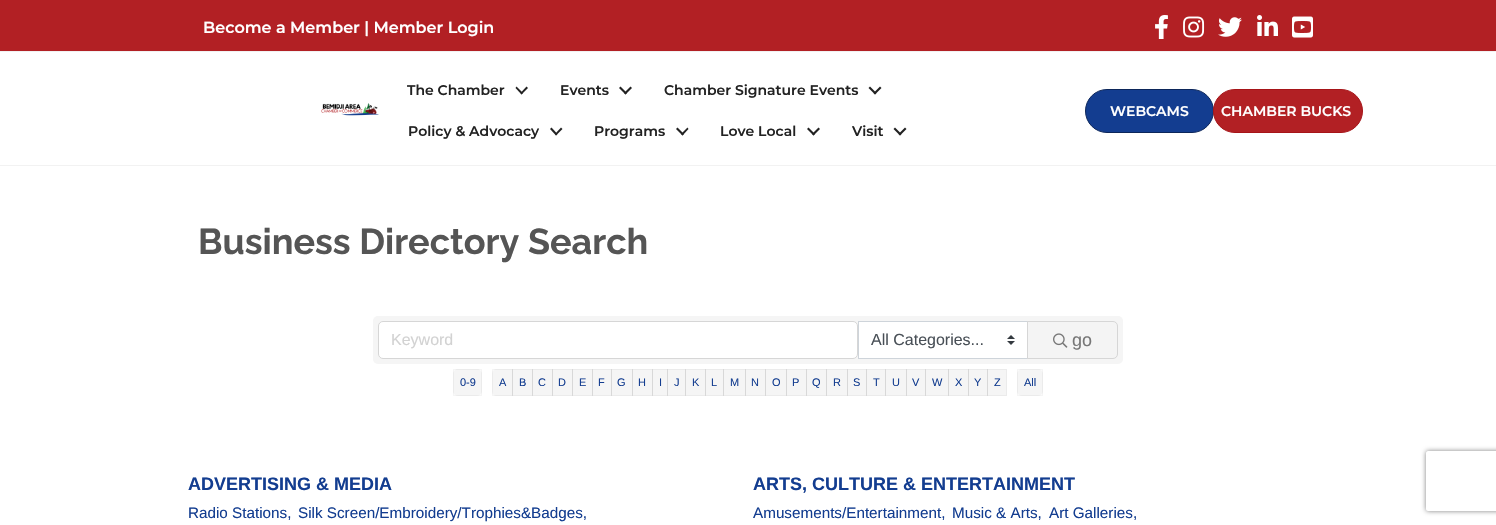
void draw(SkCanvas* canvas) {
    SkPaint paint;
    paint.setAntiAlias(true);
    auto face = [&](const char* family, int weight, float size, bool italic = false) {
        SkFontStyle style(weight, SkFontStyle::kNormal_Width,
            italic ? SkFontStyle::kItalic_Slant : SkFontStyle::kUpright_Slant);
        SkFont result(fontMgr->matchFamilyStyle(family, style), size);
        result.setSubpixel(true);
        return result;
    };
    auto write = [&](const char* s, float x, float y, const SkFont& font, SkColor color) {
        SkPaint ink(SkColor4f::FromColor(color));
        ink.setAntiAlias(true);
        canvas->drawString(s, x, y, font, ink);
    };
    auto block = [&](float x, float y, float w, float h, SkColor color) {
        SkPaint ink(SkColor4f::FromColor(color));
        ink.setAntiAlias(true);
        canvas->drawRect(SkRect::MakeXYWH(x, y, w, h), ink);
    };
    auto card = [&](float x, float y, float w, float h, float radius, SkColor color) {
        SkPaint ink(SkColor4f::FromColor(color));
        ink.setAntiAlias(true);
        canvas->drawRoundRect(SkRect::MakeXYWH(x, y, w, h), radius, radius, ink);
    };
    auto paste = [&](const char* path, float x, float y, float w, float h) {
        auto image = SkImages::DeferredFromEncodedData(SkData::MakeFromFileName(path));
        canvas->drawImageRect(image, SkRect::MakeXYWH(x, y, w, h), SkSamplingOptions());
    };
    canvas->clear(SkColorSetRGB(178, 32, 36));
    auto kFont1 = face("Montserrat", 600, 16);
    write("Become a Member | Member Login", 203, 33, kFont1, SK_ColorWHITE);
    paste("pic1.png", 1155, 15, 13, 24);
    paste("pic2.png", 1183, 16, 22, 22);
    paste("pic3.png", 1218, 17, 24, 20);
    paste("pic4.png", 1257, 15, 21, 21);
    paste("pic5.png", 1292, 16, 21, 22);
    block(0, 52, 1496, 113, SK_ColorWHITE);
    block(0, 51, 1496, 1, SkColorSetRGB(242, 242, 242));
    block(0, 165, 1496, 1, SkColorSetRGB(242, 242, 242));
    paste("pic6.png", 321, 103, 58, 13);
    auto kFont2 = face("Montserrat", 600, 14);
    write("The Chamber", 407, 95, kFont2, SkColorSetRGB(34, 34, 34));
    paint.setColor(SkColorSetRGB(34, 34, 34));
    canvas->drawPath(SkPathBuilder().moveTo(526.5f, 86.5f).lineTo(528, 88).lineTo(521.5f, 94.5f).lineTo(520.5f, 93).close().detach(), paint);
    canvas->drawPath(SkPathBuilder().moveTo(516.5f, 86.5f).lineTo(523, 93).lineTo(521.5f, 94.5f).lineTo(515.5f, 88).close().detach(), paint);
    write("Events", 560, 95, kFont2, SkColorSetRGB(34, 34, 34));
    canvas->drawPath(SkPathBuilder().moveTo(630.5f, 86.5f).lineTo(632, 88).lineTo(625.5f, 94.5f).lineTo(624, 93).close().detach(), paint);
    canvas->drawPath(SkPathBuilder().moveTo(620.5f, 86.5f).lineTo(627, 93).lineTo(625.5f, 94.5f).lineTo(619, 88).close().detach(), paint);
    write("Chamber Signature Events", 664, 95, kFont2, SkColorSetRGB(34, 34, 34));
    canvas->drawPath(SkPathBuilder().moveTo(880, 86.5f).lineTo(881.5f, 88).lineTo(875, 94.5f).lineTo(873.5f, 93).close().detach(), paint);
    canvas->drawPath(SkPathBuilder().moveTo(870, 86.5f).lineTo(876.5f, 93).lineTo(875, 94.5f).lineTo(868.5f, 88).close().detach(), paint);
    write("Policy & Advocacy", 408, 136, kFont2, SkColorSetRGB(34, 34, 34));
    canvas->drawPath(SkPathBuilder().moveTo(561, 127.5f).lineTo(562.5f, 129).lineTo(556, 135.5f).lineTo(555, 134).close().detach(), paint);
    canvas->drawPath(SkPathBuilder().moveTo(551.5f, 127.5f).lineTo(557.5f, 134).lineTo(556, 135.5f).lineTo(550, 129).close().detach(), paint);
    write("Programs", 594, 136, kFont2, SkColorSetRGB(34, 34, 34));
    canvas->drawPath(SkPathBuilder().moveTo(687.5f, 127.5f).lineTo(688.5f, 129).lineTo(682.5f, 135.5f).lineTo(681, 134).close().detach(), paint);
    canvas->drawPath(SkPathBuilder().moveTo(677.5f, 127.5f).lineTo(684, 134).lineTo(682.5f, 135.5f).lineTo(676, 129).close().detach(), paint);
    write("Love Local", 720, 136, kFont2, SkColorSetRGB(34, 34, 34));
    canvas->drawPath(SkPathBuilder().moveTo(818.5f, 127.5f).lineTo(820, 129).lineTo(813.5f, 135.5f).lineTo(812, 134).close().detach(), paint);
    canvas->drawPath(SkPathBuilder().moveTo(808.5f, 127.5f).lineTo(815, 134).lineTo(813.5f, 135.5f).lineTo(807, 129).close().detach(), paint);
    write("Visit", 852, 136, kFont2, SkColorSetRGB(34, 34, 34));
    canvas->drawPath(SkPathBuilder().moveTo(905, 127.5f).lineTo(906.5f, 129).lineTo(900, 135.5f).lineTo(898.5f, 134).close().detach(), paint);
    canvas->drawPath(SkPathBuilder().moveTo(895, 127.5f).lineTo(901.5f, 134).lineTo(900, 135.5f).lineTo(893.5f, 129).close().detach(), paint);
    paint.setColor(SkColorSetRGB(19, 61, 144));
    canvas->drawRoundRect(SkRect::MakeXYWH(1085.5f, 89.5f, 128, 43), 21.5f, 21.5f, paint);
    paint.setStyle(SkPaint::kStroke_Style);
    paint.setStrokeWidth(1);
    paint.setColor(SkColorSetRGB(12, 38, 90));
    canvas->drawRoundRect(SkRect::MakeXYWH(1085.5f, 89.5f, 128, 43), 21.5f, 21.5f, paint);
    write("WEBCAMS", 1110, 116, kFont2, SK_ColorWHITE);
    paint.setStyle(SkPaint::kFill_Style);
    paint.setColor(SkColorSetRGB(178, 32, 36));
    canvas->drawRoundRect(SkRect::MakeXYWH(1213.5f, 89.5f, 149, 43), 21.5f, 21.5f, paint);
    paint.setStyle(SkPaint::kStroke_Style);
    paint.setColor(SkColorSetRGB(166, 20, 24));
    canvas->drawRoundRect(SkRect::MakeXYWH(1213.5f, 89.5f, 149, 43), 21.5f, 21.5f, paint);
    write("CHAMBER BUCKS", 1221, 116, kFont2, SK_ColorWHITE);
    block(0, 166, 1496, 359, SK_ColorWHITE);
    auto kFont3 = face("Raleway", 100, 36);
    write("Business Directory Search", 198, 254, kFont3, SkColorSetRGB(85, 85, 85));
    card(373, 316, 750, 48, 5, SkColorSetRGB(245, 245, 245));
    paint.setStyle(SkPaint::kFill_Style);
    paint.setColor(SK_ColorWHITE);
    canvas->drawRoundRect(SkRect::MakeXYWH(378.5f, 321.5f, 479, 37), 4.5f, 4.5f, paint);
    paint.setStyle(SkPaint::kStroke_Style);
    paint.setColor(SkColorSetRGB(214, 214, 214));
    canvas->drawRoundRect(SkRect::MakeXYWH(378.5f, 321.5f, 479, 37), 4.5f, 4.5f, paint);
    auto kFont4 = face("Liberation Sans", 400, 16);
    write("Keyword", 391, 345, kFont4, SkColorSetRGB(210, 210, 210));
    block(859, 322, 168, 36, SK_ColorWHITE);
    paste("pic7.png", 1007, 335, 8, 10);
    paint.setColor(SkColorSetRGB(206, 212, 218));
    canvas->drawRect(SkRect::MakeXYWH(858.5f, 321.5f, 169, 37), paint);
    write("All Categories...", 871, 345, kFont4, SkColorSetRGB(73, 80, 87));
    paint.setStyle(SkPaint::kFill_Style);
    paint.setColor(SkColorSetRGB(244, 244, 244));
    canvas->drawPath(SkPathBuilder().moveTo(1027.5f, 321.5f).lineTo(1113, 321.5f).cubicTo(1115.5f, 321.5f, 1117.5f, 323.5f, 1117.5f, 326).lineTo(1117.5f, 354).cubicTo(1117.5f, 356.5f, 1115.5f, 358.5f, 1113, 358.5f).lineTo(1027.5f, 358.5f).close().detach(), paint);
    paint.setStyle(SkPaint::kStroke_Style);
    paint.setColor(SkColorSetRGB(214, 214, 214));
    canvas->drawPath(SkPathBuilder().moveTo(1027.5f, 321.5f).lineTo(1113, 321.5f).cubicTo(1115.5f, 321.5f, 1117.5f, 323.5f, 1117.5f, 326).lineTo(1117.5f, 354).cubicTo(1117.5f, 356.5f, 1115.5f, 358.5f, 1113, 358.5f).lineTo(1027.5f, 358.5f).close().detach(), paint);
    paste("pic8.png", 1053, 333, 15, 15);
    auto kFont5 = face("Liberation Sans", 400, 18);
    write("go", 1072, 346, kFont5, SkColorSetRGB(119, 119, 119));
    card(453, 369, 29, 27, 5, SkColorSetRGB(245, 245, 245));
    paint.setColor(SkColorSetARGB(10, 0, 0, 0));
    canvas->drawRect(SkRect::MakeXYWH(453.5f, 369.5f, 28, 26), paint);
    auto kFont6 = face("Liberation Sans", 400, 11);
    write("0-9", 460, 386, kFont6, SkColorSetRGB(19, 61, 144));
    paint.setStyle(SkPaint::kFill_Style);
    paint.setColor(SkColorSetRGB(245, 245, 245));
    canvas->drawPath(SkPathBuilder().moveTo(497, 369).lineTo(513, 369).lineTo(513, 396).lineTo(497, 396).cubicTo(494, 396, 492, 394, 492, 391).lineTo(492, 374).cubicTo(492, 371, 494, 369, 497, 369).close().detach(), paint);
    paint.setStyle(SkPaint::kStroke_Style);
    paint.setColor(SkColorSetARGB(10, 0, 0, 0));
    canvas->drawRect(SkRect::MakeXYWH(492.5f, 369.5f, 20, 26), paint);
    write("A", 499, 386, kFont6, SkColorSetRGB(19, 61, 144));
    block(512, 369, 21, 27, SkColorSetARGB(10, 0, 0, 0));
    canvas->drawRect(SkRect::MakeXYWH(512.5f, 369.5f, 20, 26), paint);
    write("B", 519, 386, kFont6, SkColorSetRGB(19, 61, 144));
    block(532, 369, 21, 27, SkColorSetARGB(10, 0, 0, 0));
    canvas->drawRect(SkRect::MakeXYWH(532.5f, 369.5f, 20, 26), paint);
    write("C", 538, 386, kFont6, SkColorSetRGB(19, 61, 144));
    block(552, 369, 21, 27, SkColorSetARGB(10, 0, 0, 0));
    canvas->drawRect(SkRect::MakeXYWH(552.5f, 369.5f, 20, 26), paint);
    write("D", 558, 386, kFont6, SkColorSetRGB(19, 61, 144));
    block(572, 369, 21, 27, SkColorSetARGB(10, 0, 0, 0));
    canvas->drawRect(SkRect::MakeXYWH(572.5f, 369.5f, 20, 26), paint);
    write("E", 579, 386, kFont6, SkColorSetRGB(19, 61, 144));
    block(592, 369, 20, 27, SkColorSetARGB(10, 0, 0, 0));
    canvas->drawRect(SkRect::MakeXYWH(592.5f, 369.5f, 19, 26), paint);
    write("F", 598, 386, kFont6, SkColorSetRGB(19, 61, 144));
    block(611, 369, 22, 27, SkColorSetARGB(10, 0, 0, 0));
    canvas->drawRect(SkRect::MakeXYWH(611.5f, 369.5f, 21, 26), paint);
    write("G", 617, 386, kFont6, SkColorSetRGB(19, 61, 144));
    block(632, 369, 21, 27, SkColorSetARGB(10, 0, 0, 0));
    canvas->drawRect(SkRect::MakeXYWH(632.5f, 369.5f, 20, 26), paint);
    write("H", 638, 386, kFont6, SkColorSetRGB(19, 61, 144));
    block(652, 369, 16, 27, SkColorSetARGB(10, 0, 0, 0));
    canvas->drawRect(SkRect::MakeXYWH(652.5f, 369.5f, 15, 26), paint);
    write("I", 659, 386, kFont6, SkColorSetRGB(19, 61, 144));
    block(667, 369, 19, 27, SkColorSetARGB(10, 0, 0, 0));
    canvas->drawRect(SkRect::MakeXYWH(667.5f, 369.5f, 18, 26), paint);
    write("J", 674, 386, kFont6, SkColorSetRGB(19, 61, 144));
    block(685, 369, 21, 27, SkColorSetARGB(10, 0, 0, 0));
    canvas->drawRect(SkRect::MakeXYWH(685.5f, 369.5f, 20, 26), paint);
    write("K", 692, 386, kFont6, SkColorSetRGB(19, 61, 144));
    block(705, 369, 19, 27, SkColorSetARGB(10, 0, 0, 0));
    canvas->drawRect(SkRect::MakeXYWH(705.5f, 369.5f, 18, 26), paint);
    write("L", 711, 386, kFont6, SkColorSetRGB(19, 61, 144));
    block(723, 369, 23, 27, SkColorSetARGB(10, 0, 0, 0));
    canvas->drawRect(SkRect::MakeXYWH(723.5f, 369.5f, 22, 26), paint);
    write("M", 730, 386, kFont6, SkColorSetRGB(19, 61, 144));
    block(745, 369, 21, 27, SkColorSetARGB(10, 0, 0, 0));
    canvas->drawRect(SkRect::MakeXYWH(745.5f, 369.5f, 20, 26), paint);
    write("N", 751, 386, kFont6, SkColorSetRGB(19, 61, 144));
    block(765, 369, 22, 27, SkColorSetARGB(10, 0, 0, 0));
    canvas->drawRect(SkRect::MakeXYWH(765.5f, 369.5f, 21, 26), paint);
    write("O", 772, 386, kFont6, SkColorSetRGB(19, 61, 144));
    block(786, 369, 21, 27, SkColorSetARGB(10, 0, 0, 0));
    canvas->drawRect(SkRect::MakeXYWH(786.5f, 369.5f, 20, 26), paint);
    write("P", 792, 386, kFont6, SkColorSetRGB(19, 61, 144));
    block(806, 369, 21, 27, SkColorSetARGB(10, 0, 0, 0));
    canvas->drawRect(SkRect::MakeXYWH(806.5f, 369.5f, 20, 26), paint);
    write("Q", 812, 386, kFont6, SkColorSetRGB(19, 61, 144));
    block(826, 369, 22, 27, SkColorSetARGB(10, 0, 0, 0));
    canvas->drawRect(SkRect::MakeXYWH(826.5f, 369.5f, 21, 26), paint);
    write("R", 833, 386, kFont6, SkColorSetRGB(19, 61, 144));
    block(847, 369, 20, 27, SkColorSetARGB(10, 0, 0, 0));
    canvas->drawRect(SkRect::MakeXYWH(847.5f, 369.5f, 19, 26), paint);
    write("S", 853, 386, kFont6, SkColorSetRGB(19, 61, 144));
    block(866, 369, 20, 27, SkColorSetARGB(10, 0, 0, 0));
    canvas->drawRect(SkRect::MakeXYWH(866.5f, 369.5f, 19, 26), paint);
    write("T", 873, 386, kFont6, SkColorSetRGB(19, 61, 144));
    block(885, 369, 22, 27, SkColorSetARGB(10, 0, 0, 0));
    canvas->drawRect(SkRect::MakeXYWH(885.5f, 369.5f, 21, 26), paint);
    write("U", 892, 386, kFont6, SkColorSetRGB(19, 61, 144));
    block(906, 369, 20, 27, SkColorSetARGB(10, 0, 0, 0));
    canvas->drawRect(SkRect::MakeXYWH(906.5f, 369.5f, 19, 26), paint);
    write("V", 912, 386, kFont6, SkColorSetRGB(19, 61, 144));
    block(925, 369, 24, 27, SkColorSetARGB(10, 0, 0, 0));
    canvas->drawRect(SkRect::MakeXYWH(925.5f, 369.5f, 23, 26), paint);
    write("W", 932, 386, kFont6, SkColorSetRGB(19, 61, 144));
    block(948, 369, 21, 27, SkColorSetARGB(10, 0, 0, 0));
    canvas->drawRect(SkRect::MakeXYWH(948.5f, 369.5f, 20, 26), paint);
    write("X", 955, 386, kFont6, SkColorSetRGB(19, 61, 144));
    block(968, 369, 20, 27, SkColorSetARGB(10, 0, 0, 0));
    canvas->drawRect(SkRect::MakeXYWH(968.5f, 369.5f, 19, 26), paint);
    write("Y", 974, 386, kFont6, SkColorSetRGB(19, 61, 144));
    block(987, 369, 20, 27, SkColorSetARGB(10, 0, 0, 0));
    canvas->drawRect(SkRect::MakeXYWH(987.5f, 369.5f, 19, 26), paint);
    write("Z", 994, 386, kFont6, SkColorSetRGB(19, 61, 144));
    card(1017, 369, 26, 27, 5, SkColorSetRGB(245, 245, 245));
    canvas->drawRect(SkRect::MakeXYWH(1017.5f, 369.5f, 25, 26), paint);
    write("All", 1024, 386, kFont6, SkColorSetRGB(19, 61, 144));
    auto kFont7 = face("Liberation Sans", 700, 18);
    write("ADVERTISING & MEDIA", 188, 490, kFont7, SkColorSetRGB(19, 61, 144));
    auto kFont8 = face("Liberation Sans", 400, 15.25f);
    write("Radio Stations,", 188, 518, kFont8, SkColorSetRGB(19, 61, 144));
    write("Silk Screen/Embroidery/Trophies&Badges,", 298, 518, kFont8, SkColorSetRGB(19, 61, 144));
    write("ARTS, CULTURE & ENTERTAINMENT", 753, 490, kFont7, SkColorSetRGB(19, 61, 144));
    write("Amusements/Entertainment,", 753, 518, kFont8, SkColorSetRGB(19, 61, 144));
    write("Music & Arts,", 952, 518, kFont8, SkColorSetRGB(19, 61, 144));
    write("Art Galleries,", 1049, 518, kFont8, SkColorSetRGB(19, 61, 144));
    canvas->save();
    canvas->clipPath(SkPathBuilder(SkPathFillType::kEvenOdd).moveTo(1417, 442).lineTo(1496, 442).lineTo(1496, 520).lineTo(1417, 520).close().moveTo(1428, 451).lineTo(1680, 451).cubicTo(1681, 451, 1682, 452, 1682, 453).lineTo(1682, 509).cubicTo(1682, 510, 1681, 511, 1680, 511).lineTo(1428, 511).cubicTo(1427, 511, 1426, 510, 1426, 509).lineTo(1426, 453).cubicTo(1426, 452, 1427, 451, 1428, 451).close().detach(), true);
    paint.setStyle(SkPaint::kFill_Style);
    paint.setColor(SkColorSetRGB(128, 128, 128));
    paint.setMaskFilter(SkMaskFilter::MakeBlur(kNormal_SkBlurStyle, 2.5f));
    canvas->drawRoundRect(SkRect::MakeXYWH(1426, 451, 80, 60), 2, 2, paint);
    paint.setMaskFilter(nullptr);
    canvas->restore();
}
